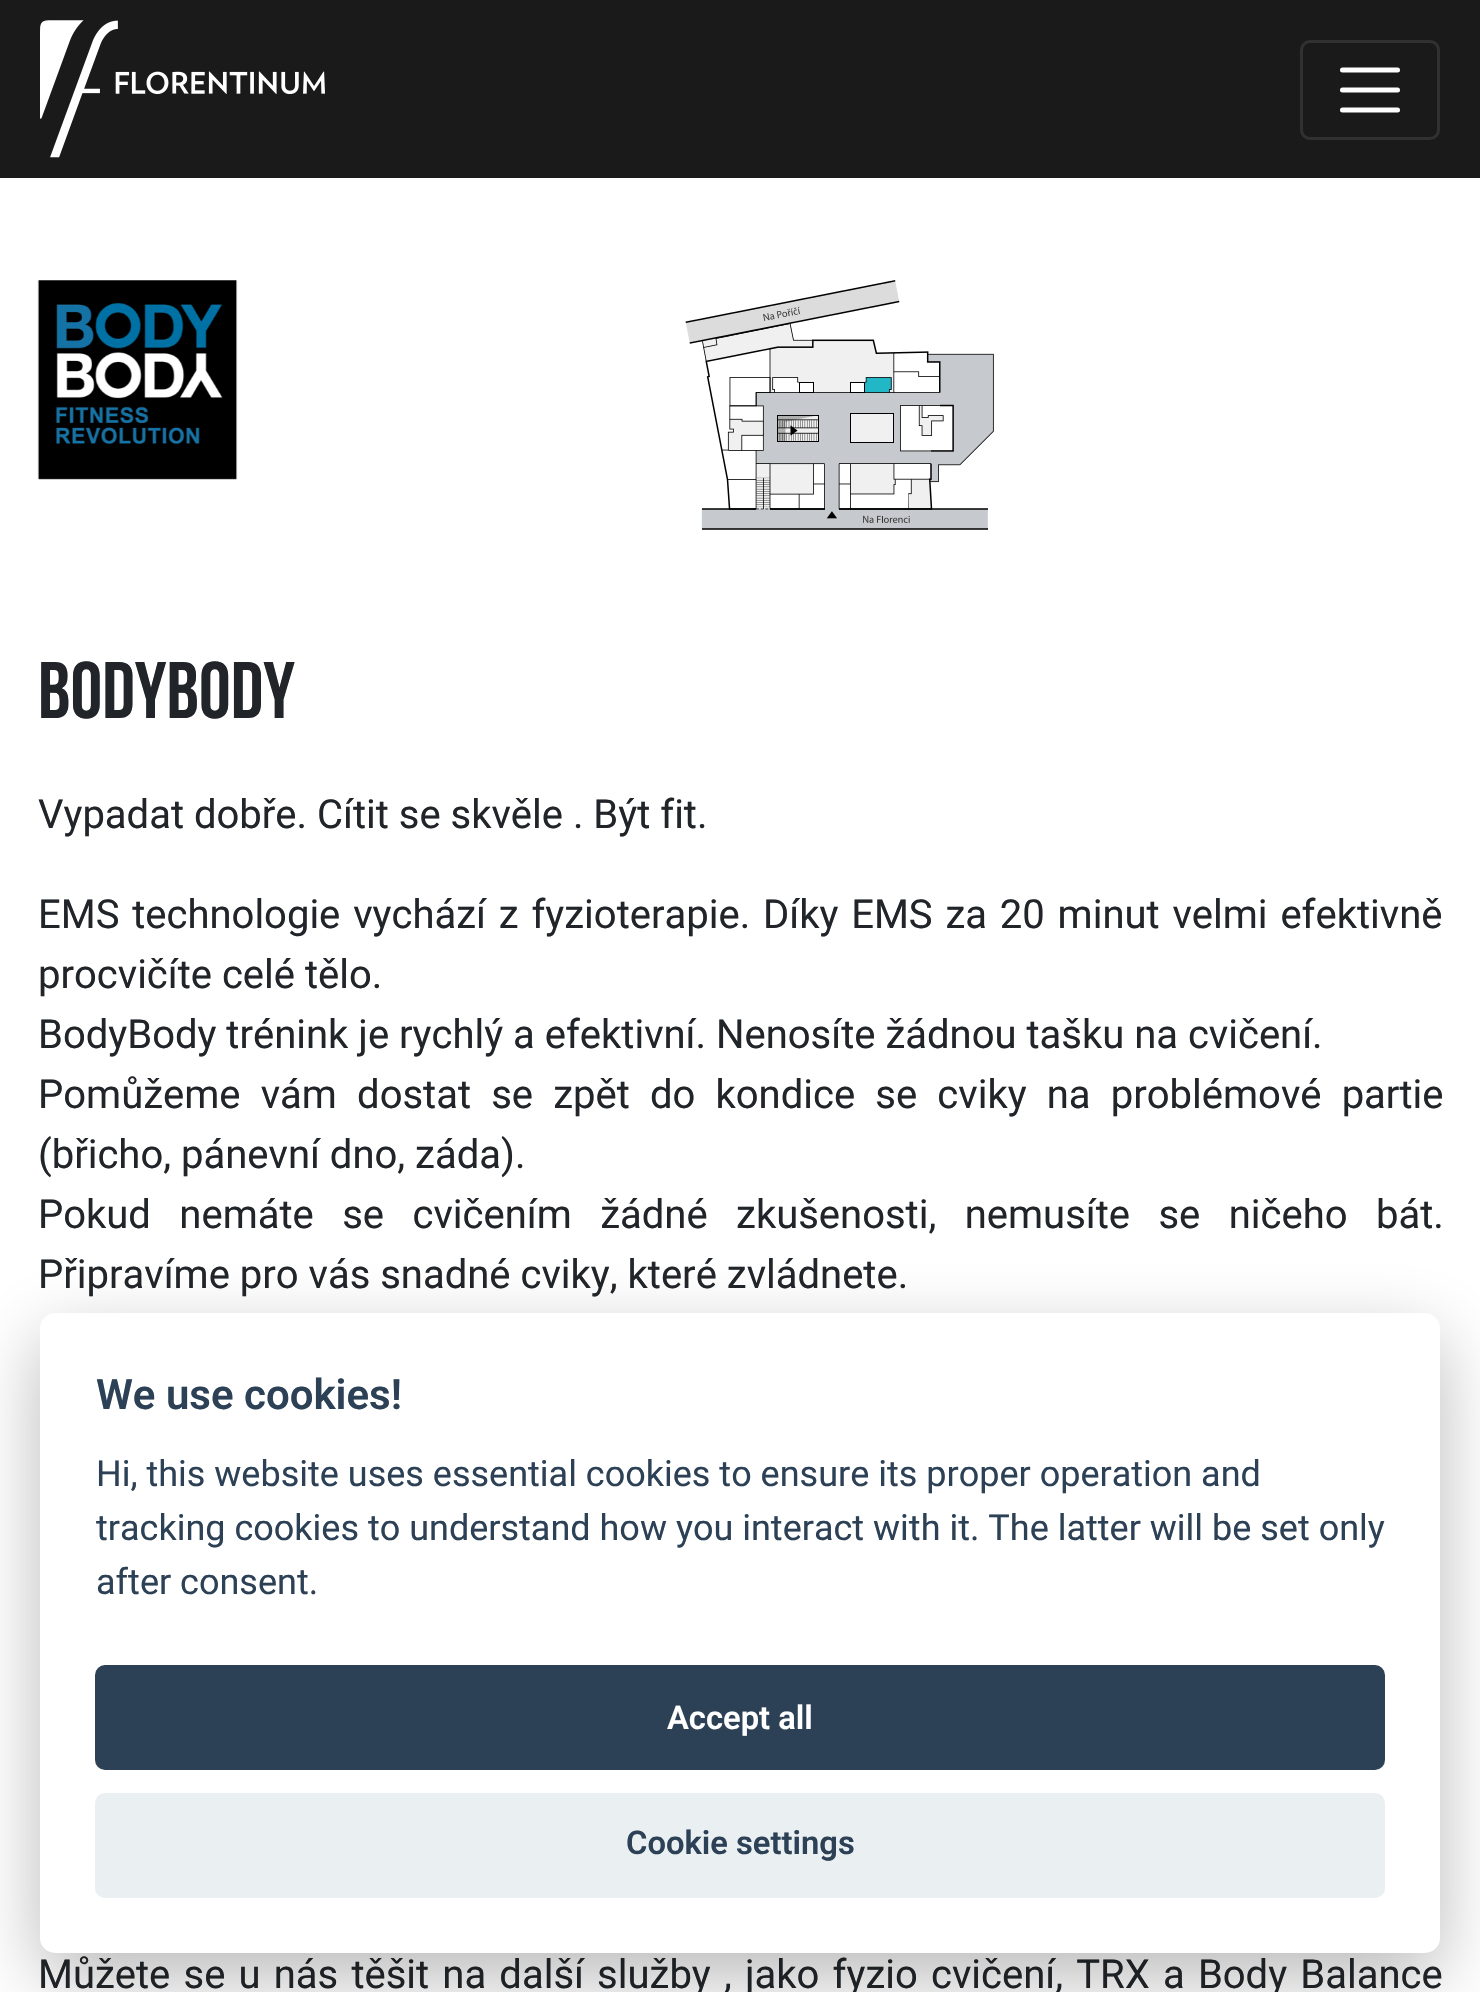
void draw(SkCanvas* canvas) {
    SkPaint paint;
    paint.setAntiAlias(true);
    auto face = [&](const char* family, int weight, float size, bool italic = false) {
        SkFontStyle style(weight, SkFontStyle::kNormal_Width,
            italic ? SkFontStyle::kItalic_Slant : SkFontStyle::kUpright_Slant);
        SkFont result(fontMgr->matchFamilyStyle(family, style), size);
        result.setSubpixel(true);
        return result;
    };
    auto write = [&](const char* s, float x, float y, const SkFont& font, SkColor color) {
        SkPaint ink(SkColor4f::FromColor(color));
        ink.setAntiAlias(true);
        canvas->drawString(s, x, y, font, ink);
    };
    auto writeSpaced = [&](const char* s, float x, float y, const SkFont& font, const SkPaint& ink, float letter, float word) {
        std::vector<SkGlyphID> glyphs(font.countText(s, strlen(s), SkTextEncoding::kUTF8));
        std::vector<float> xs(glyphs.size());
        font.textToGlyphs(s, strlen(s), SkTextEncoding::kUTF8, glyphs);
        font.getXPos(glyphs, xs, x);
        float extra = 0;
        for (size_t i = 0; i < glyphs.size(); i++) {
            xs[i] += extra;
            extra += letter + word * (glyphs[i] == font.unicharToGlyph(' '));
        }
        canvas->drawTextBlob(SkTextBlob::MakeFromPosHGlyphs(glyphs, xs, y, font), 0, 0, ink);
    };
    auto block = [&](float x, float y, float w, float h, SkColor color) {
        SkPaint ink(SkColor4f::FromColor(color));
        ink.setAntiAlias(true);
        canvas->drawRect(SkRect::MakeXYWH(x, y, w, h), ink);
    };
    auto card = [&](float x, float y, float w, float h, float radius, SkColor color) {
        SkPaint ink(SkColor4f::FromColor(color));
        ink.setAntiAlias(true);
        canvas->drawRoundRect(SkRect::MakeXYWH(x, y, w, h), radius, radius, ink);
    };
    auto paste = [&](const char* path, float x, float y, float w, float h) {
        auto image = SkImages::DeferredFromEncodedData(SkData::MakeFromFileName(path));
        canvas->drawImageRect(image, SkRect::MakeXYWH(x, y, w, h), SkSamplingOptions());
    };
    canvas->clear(SK_ColorWHITE);
    block(0, 0, 1480, 178, SkColorSetRGB(26, 26, 26));
    paste("pic1.png", 40, 20, 285, 138);
    paint.setStyle(SkPaint::kStroke_Style);
    paint.setStrokeWidth(3);
    paint.setColor(SkColorSetRGB(49, 49, 49));
    canvas->drawRoundRect(SkRect::MakeXYWH(1301.5f, 41.5f, 137, 97), 8.5f, 8.5f, paint);
    paint.setStrokeWidth(5);
    paint.setStrokeCap(SkPaint::kRound_Cap);
    paint.setColor(SK_ColorWHITE);
    canvas->drawPath(SkPathBuilder().moveTo(1342.5f, 70).lineTo(1397.5f, 70).moveTo(1342.5f, 90).lineTo(1397.5f, 90).moveTo(1342.5f, 110).lineTo(1397.5f, 110).detach(), paint);
    paste("pic2.png", 37, 280, 201, 200);
    paste("pic3.png", 685, 280, 309, 250);
    auto kFont1 = face("Bebas Neue", 700, 80);
    write("BodyBody", 38, 718, kFont1, SkColorSetRGB(33, 37, 41));
    auto kFont2 = face("Roboto", 400, 40);
    write("Vypadat dobře. Cítit se skvěle . Být fit.", 38, 828, kFont2, SkColorSetRGB(33, 37, 41));
    paint.setStyle(SkPaint::kFill_Style);
    paint.setColor(SkColorSetRGB(33, 37, 41));
    writeSpaced("EMS technologie vychází z fyzioterapie. Díky EMS za 20 minut velmi efektivně", 38, 928, kFont2, paint, 0, 2.9f);
    write("procvičíte celé tělo.", 38, 988, kFont2, SkColorSetRGB(33, 37, 41));
    write("BodyBody trénink je rychlý a efektivní. Nenosíte žádnou tašku na cvičení.", 38, 1048, kFont2, SkColorSetRGB(33, 37, 41));
    writeSpaced("Pomůžeme vám dostat se zpět do kondice se cviky na problémové partie", 38, 1108, kFont2, paint, 0, 10.25f);
    write("(břicho, pánevní dno, záda).", 38, 1168, kFont2, SkColorSetRGB(33, 37, 41));
    writeSpaced("Pokud nemáte se cvičením žádné zkušenosti, nemusíte se ničeho bát.", 38, 1228, kFont2, paint, 0, 18.5f);
    write("Připravíme pro vás snadné cviky, které zvládnete.", 38, 1288, kFont2, SkColorSetRGB(33, 37, 41));
    writeSpaced("Můžete se u nás těšit na další služby , jako fyzio cvičení, TRX a Body Balance", 38, 1988, kFont2, paint, 0, 3.25f);
    paint.setColor(SkColorSetARGB(71, 2, 2, 3));
    paint.setMaskFilter(SkMaskFilter::MakeBlur(kNormal_SkBlurStyle, 37.5f));
    canvas->drawRoundRect(SkRect::MakeXYWH(40, 1338, 1400, 640), 15, 15, paint);
    paint.setMaskFilter(nullptr);
    card(40, 1313, 1400, 640, 15, SK_ColorWHITE);
    auto kFont3 = face("Roboto", 600, 42);
    write("We use cookies!", 96, 1409, kFont3, SkColorSetRGB(45, 65, 86));
    auto kFont4 = face("Roboto", 400, 36);
    write("Hi, this website uses essential cookies to ensure its proper operation and", 96, 1486, kFont4, SkColorSetRGB(45, 65, 86));
    write("tracking cookies to understand how you interact with it. The latter will be set only", 96, 1540, kFont4, SkColorSetRGB(45, 65, 86));
    write("after consent.", 96, 1594, kFont4, SkColorSetRGB(45, 65, 86));
    card(95, 1665, 1290, 105, 10, SkColorSetRGB(45, 65, 86));
    auto kFont5 = face("Roboto", 600, 32.75f);
    write("Accept all", 667, 1729, kFont5, SK_ColorWHITE);
    card(95, 1793, 1290, 105, 10, SkColorSetRGB(234, 239, 242));
    write("Cookie settings", 626, 1854, kFont5, SkColorSetRGB(45, 65, 86));
}
